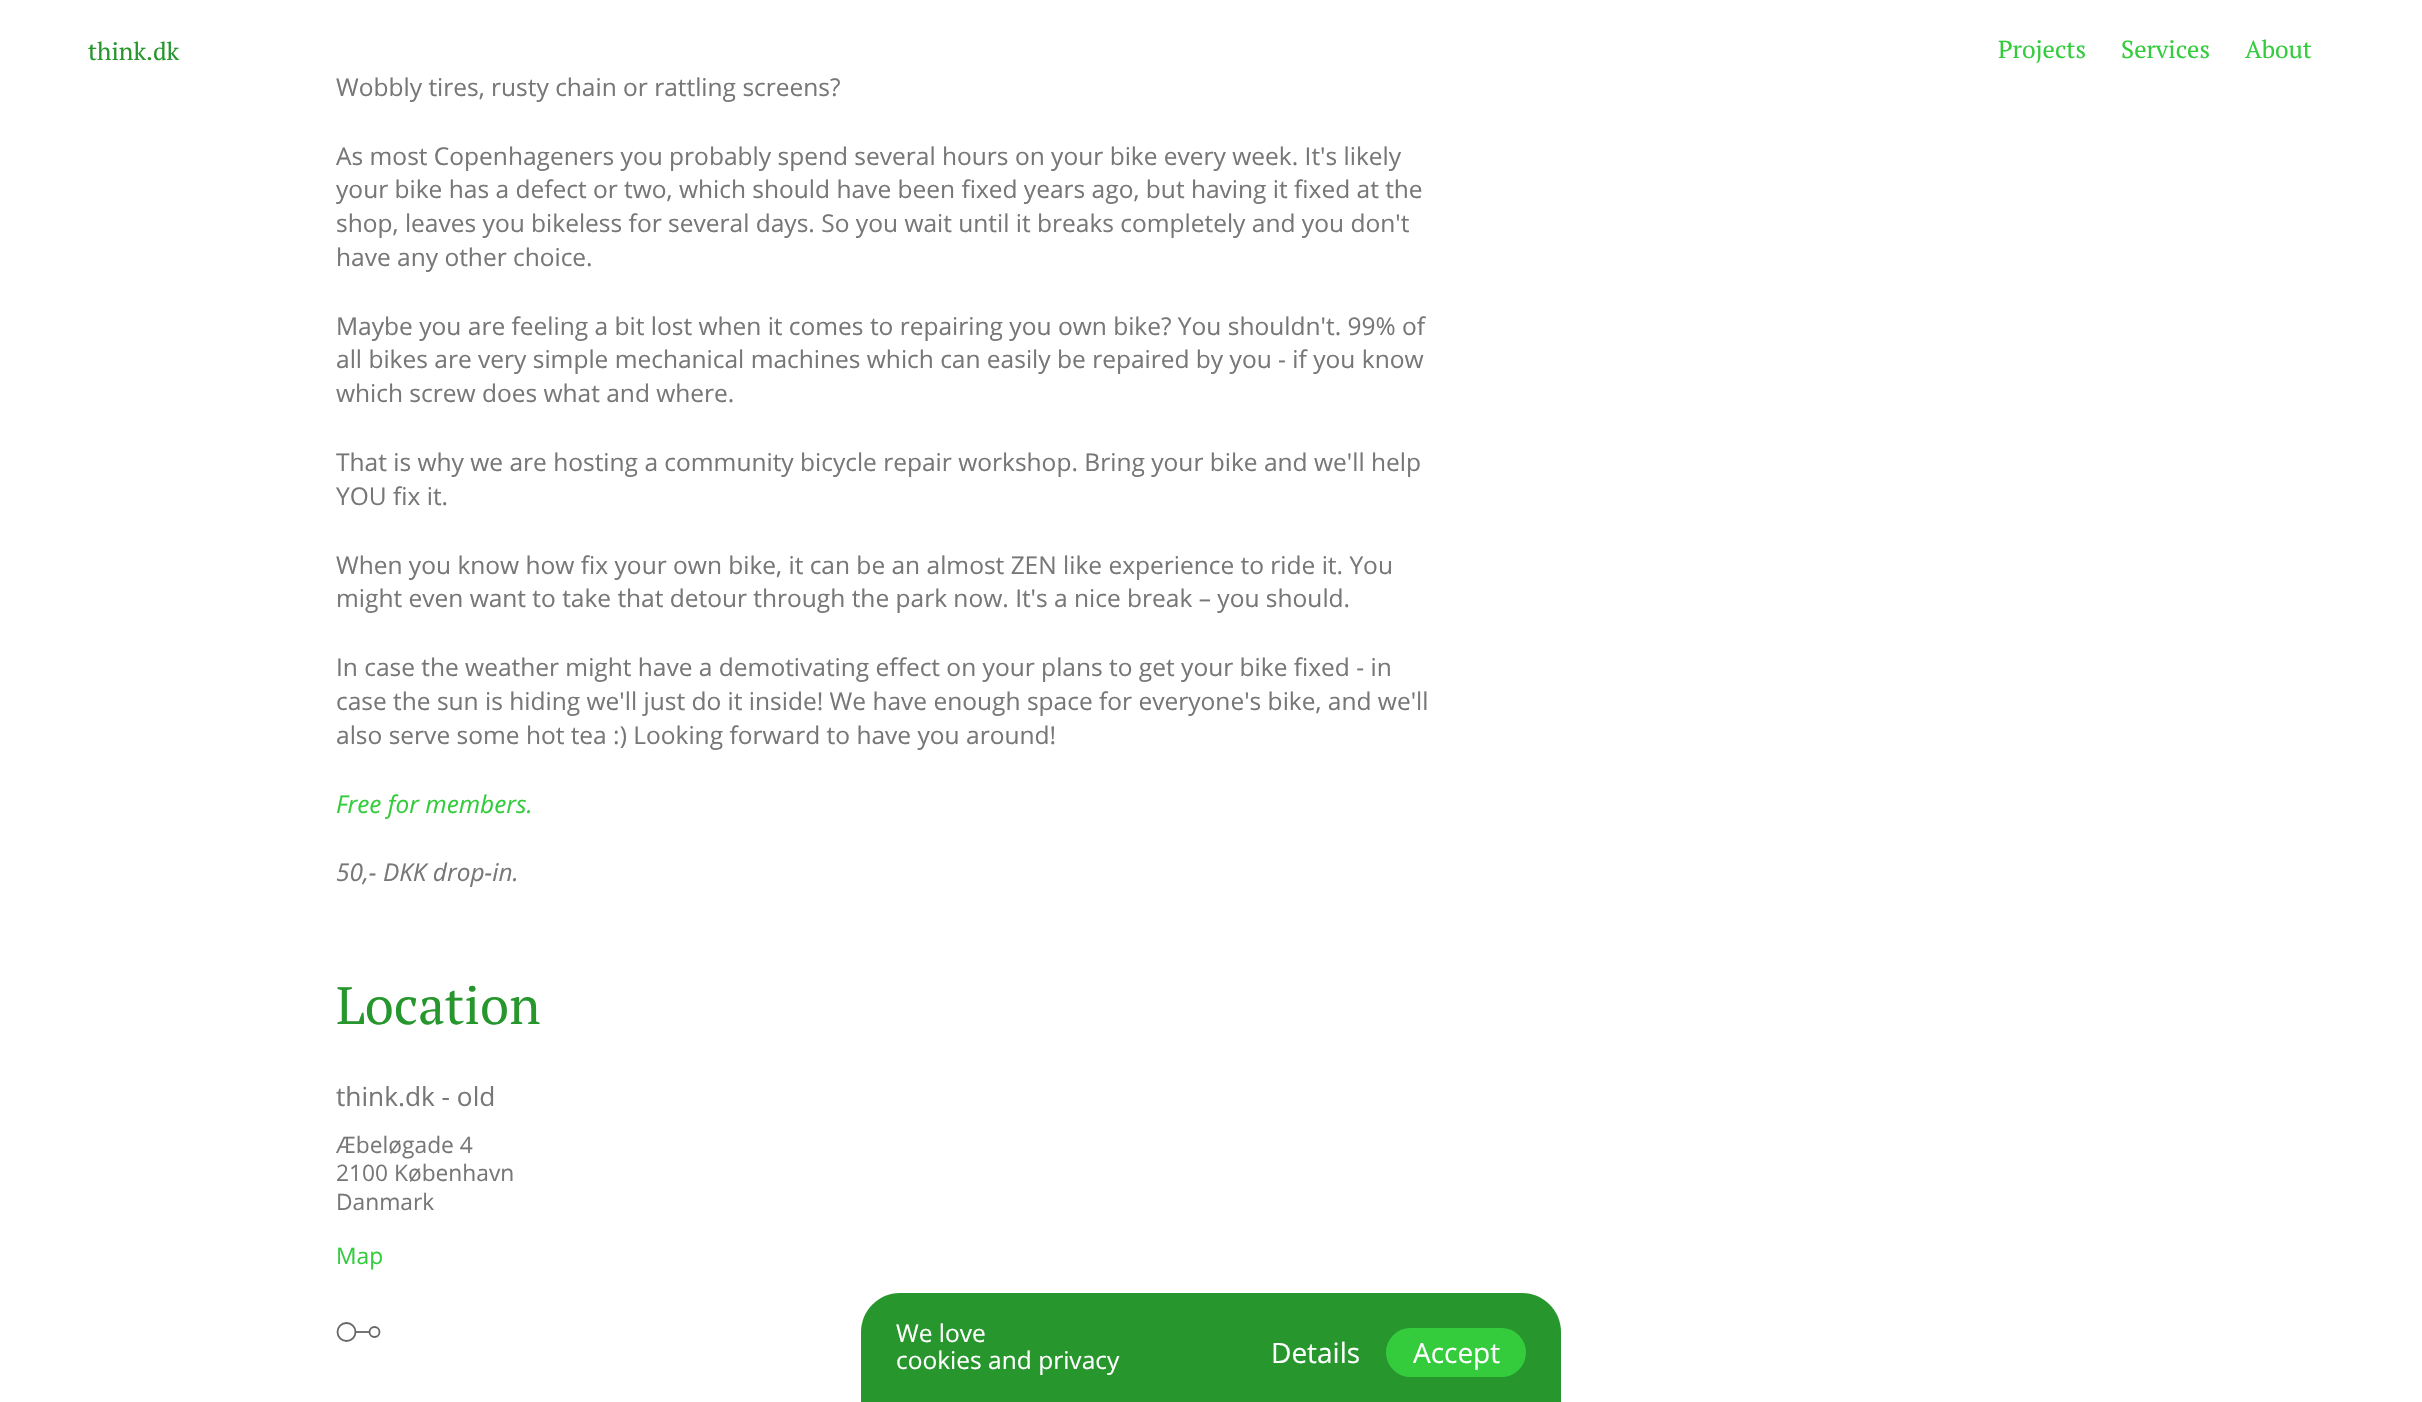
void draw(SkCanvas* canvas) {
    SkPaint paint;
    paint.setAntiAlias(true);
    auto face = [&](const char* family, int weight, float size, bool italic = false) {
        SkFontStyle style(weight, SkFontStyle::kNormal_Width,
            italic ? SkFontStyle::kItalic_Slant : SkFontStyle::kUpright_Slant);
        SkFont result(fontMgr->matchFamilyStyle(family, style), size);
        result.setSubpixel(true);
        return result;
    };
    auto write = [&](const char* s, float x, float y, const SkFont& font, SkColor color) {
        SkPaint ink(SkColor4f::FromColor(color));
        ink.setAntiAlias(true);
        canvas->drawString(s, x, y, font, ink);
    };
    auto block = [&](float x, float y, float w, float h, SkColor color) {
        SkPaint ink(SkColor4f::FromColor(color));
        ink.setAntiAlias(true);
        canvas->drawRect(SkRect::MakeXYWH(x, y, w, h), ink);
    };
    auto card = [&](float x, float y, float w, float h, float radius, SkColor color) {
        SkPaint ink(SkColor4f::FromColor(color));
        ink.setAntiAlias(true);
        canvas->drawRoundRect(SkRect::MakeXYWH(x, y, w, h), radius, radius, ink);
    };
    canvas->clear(SK_ColorWHITE);
    auto kFont1 = face("PT Serif", 400, 24.5f);
    write("think.dk", 88, 60, kFont1, SkColorSetRGB(38, 150, 45));
    write("Projects", 1998, 58, kFont1, SkColorSetRGB(52, 204, 61));
    write("Services", 2121, 58, kFont1, SkColorSetRGB(52, 204, 61));
    write("About", 2245, 58, kFont1, SkColorSetRGB(52, 204, 61));
    auto kFont2 = face("Open Sans", 400, 24.5f);
    write("Wobbly tires, rusty chain or rattling screens?", 336, 96, kFont2, SkColorSetRGB(119, 119, 119));
    write("As most Copenhageners you probably spend several hours on your bike every week. It's likely", 336, 165, kFont2, SkColorSetRGB(119, 119, 119));
    write("your bike has a defect or two, which should have been fixed years ago, but having it fixed at the", 336, 198, kFont2, SkColorSetRGB(119, 119, 119));
    write("shop, leaves you bikeless for several days. So you wait until it breaks completely and you don't", 336, 232, kFont2, SkColorSetRGB(119, 119, 119));
    write("have any other choice.", 336, 266, kFont2, SkColorSetRGB(119, 119, 119));
    write("Maybe you are feeling a bit lost when it comes to repairing you own bike? You shouldn't. 99% of", 336, 335, kFont2, SkColorSetRGB(119, 119, 119));
    write("all bikes are very simple mechanical machines which can easily be repaired by you - if you know", 336, 368, kFont2, SkColorSetRGB(119, 119, 119));
    write("which screw does what and where.", 336, 402, kFont2, SkColorSetRGB(119, 119, 119));
    write("That is why we are hosting a community bicycle repair workshop. Bring your bike and we'll help", 336, 471, kFont2, SkColorSetRGB(119, 119, 119));
    write("YOU fix it.", 336, 505, kFont2, SkColorSetRGB(119, 119, 119));
    write("When you know how fix your own bike, it can be an almost ZEN like experience to ride it. You", 336, 574, kFont2, SkColorSetRGB(119, 119, 119));
    write("might even want to take that detour through the park now. It's a nice break – you should.", 336, 607, kFont2, SkColorSetRGB(119, 119, 119));
    write("In case the weather might have a demotivating effect on your plans to get your bike fixed - in", 336, 676, kFont2, SkColorSetRGB(119, 119, 119));
    write("case the sun is hiding we'll just do it inside! We have enough space for everyone's bike, and we'll", 336, 710, kFont2, SkColorSetRGB(119, 119, 119));
    write("also serve some hot tea :) Looking forward to have you around!", 336, 744, kFont2, SkColorSetRGB(119, 119, 119));
    auto kFont3 = face("Open Sans", 400, 24.5f, true);
    write("Free for members.", 336, 813, kFont3, SkColorSetRGB(52, 204, 61));
    write("50,- DKK drop-in.", 336, 881, kFont3, SkColorSetRGB(119, 119, 119));
    auto kFont4 = face("PT Serif", 400, 52.5f);
    write("Location", 336, 1024, kFont4, SkColorSetRGB(38, 150, 45));
    auto kFont5 = face("Open Sans", 400, 26.25f);
    write("think.dk - old", 336, 1106, kFont5, SkColorSetRGB(119, 119, 119));
    auto kFont6 = face("Open Sans", 400, 22.75f);
    write("Æbeløgade 4", 336, 1153, kFont6, SkColorSetRGB(119, 119, 119));
    write("2100 København", 336, 1181, kFont6, SkColorSetRGB(119, 119, 119));
    write("Danmark", 336, 1210, kFont6, SkColorSetRGB(119, 119, 119));
    write("Map", 336, 1264, kFont6, SkColorSetRGB(52, 204, 61));
    block(356, 1331, 19, 2, SkColorSetRGB(117, 117, 117));
    paint.setStyle(SkPaint::kStroke_Style);
    paint.setStrokeWidth(1.8f);
    paint.setColor(SkColorSetRGB(102, 102, 102));
    canvas->drawCircle(346.5f, 1332, 9, paint);
    paint.setStyle(SkPaint::kFill_Style);
    paint.setColor(SK_ColorWHITE);
    canvas->drawCircle(374.5f, 1332, 5, paint);
    paint.setStyle(SkPaint::kStroke_Style);
    paint.setColor(SkColorSetRGB(102, 102, 102));
    canvas->drawCircle(374.5f, 1332, 5, paint);
    paint.setStyle(SkPaint::kFill_Style);
    paint.setColor(SkColorSetRGB(38, 150, 45));
    canvas->drawPath(SkPathBuilder().moveTo(900, 1293).lineTo(1522, 1293).cubicTo(1543.5f, 1293, 1561, 1310.5f, 1561, 1332).lineTo(1561, 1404).lineTo(861, 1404).lineTo(861, 1332).cubicTo(861, 1310.5f, 878.5f, 1293, 900, 1293).close().detach(), paint);
    write("We love", 896, 1342, kFont2, SK_ColorWHITE);
    write("cookies and privacy", 896, 1369, kFont2, SK_ColorWHITE);
    auto kFont7 = face("Open Sans", 400, 28);
    write("Details", 1271, 1363, kFont7, SK_ColorWHITE);
    card(1386, 1328, 140, 49, 24.5f, SkColorSetRGB(52, 204, 61));
    write("Accept", 1413, 1363, kFont7, SK_ColorWHITE);
}
